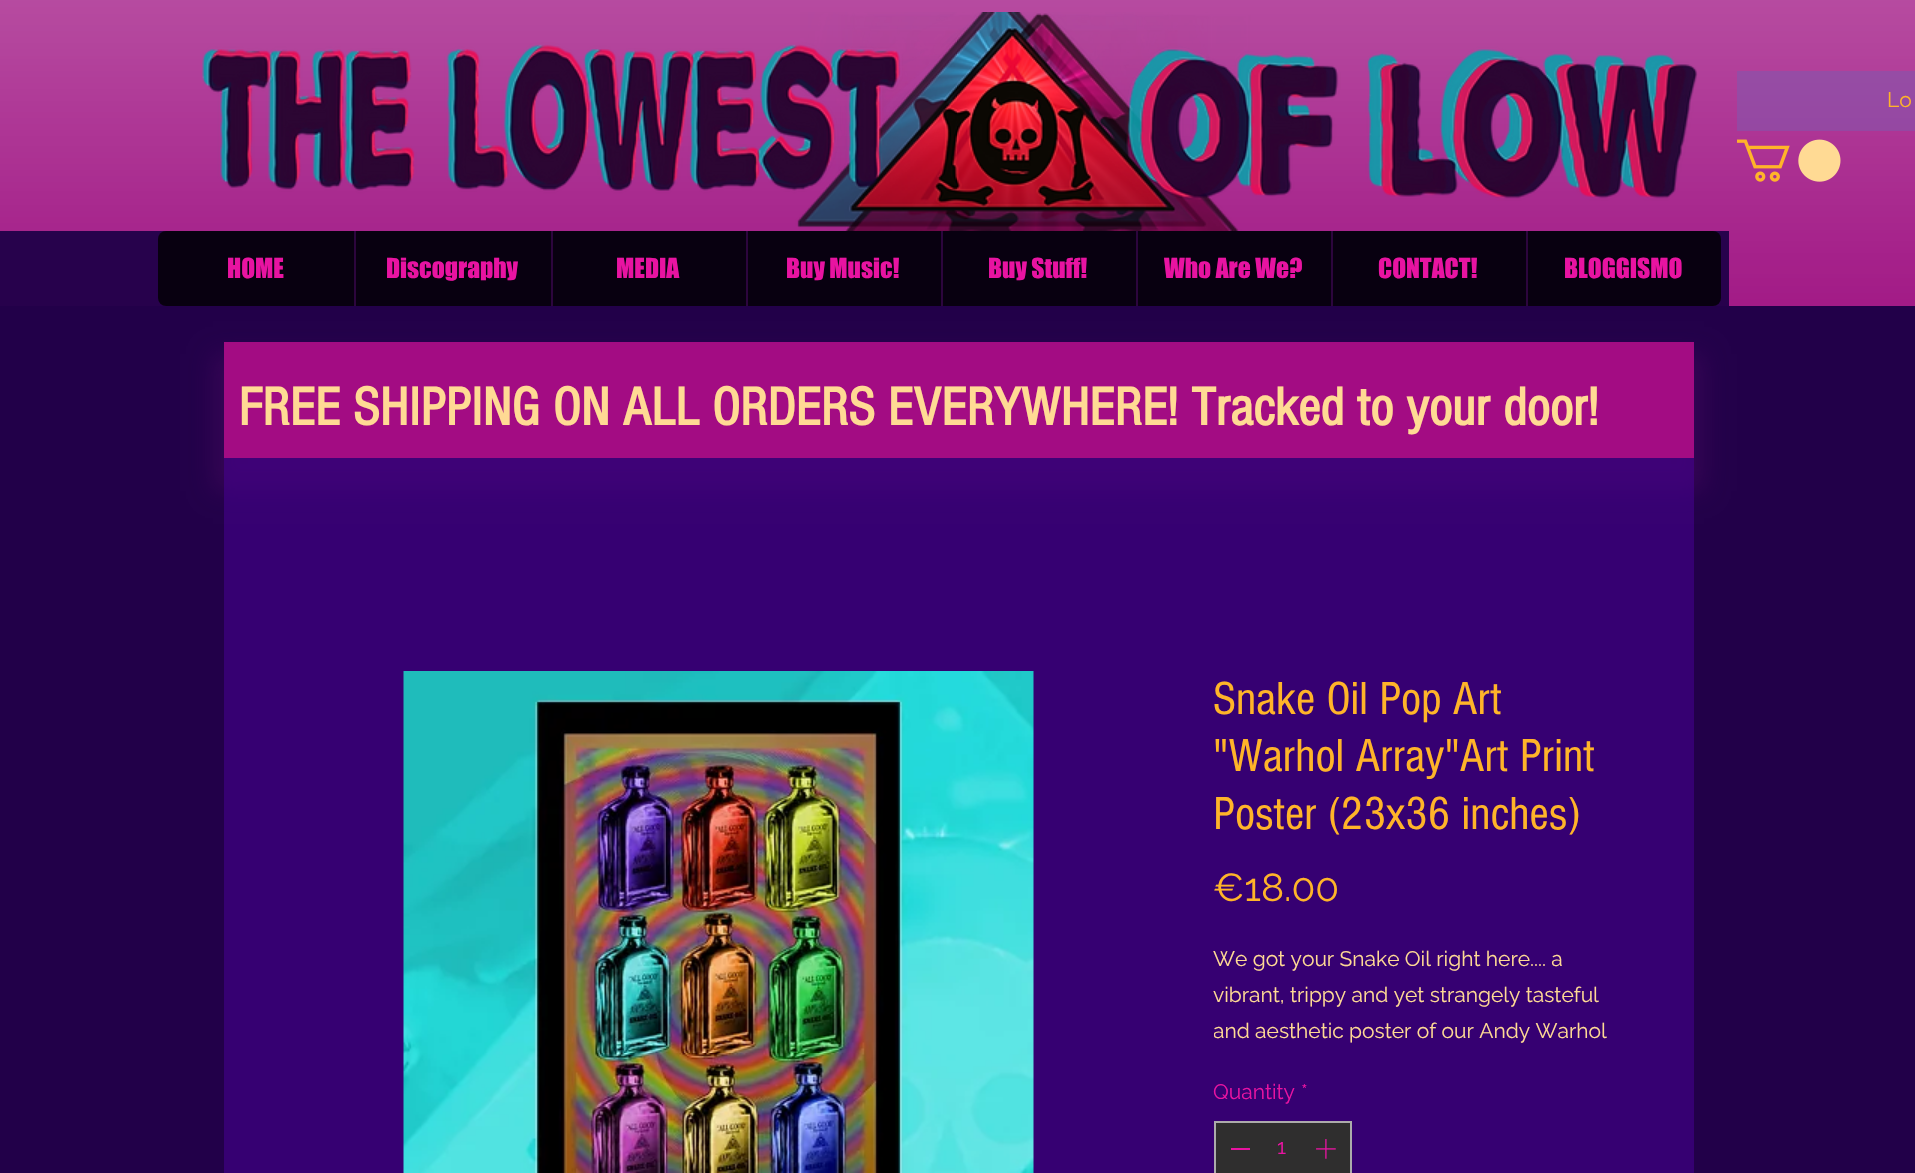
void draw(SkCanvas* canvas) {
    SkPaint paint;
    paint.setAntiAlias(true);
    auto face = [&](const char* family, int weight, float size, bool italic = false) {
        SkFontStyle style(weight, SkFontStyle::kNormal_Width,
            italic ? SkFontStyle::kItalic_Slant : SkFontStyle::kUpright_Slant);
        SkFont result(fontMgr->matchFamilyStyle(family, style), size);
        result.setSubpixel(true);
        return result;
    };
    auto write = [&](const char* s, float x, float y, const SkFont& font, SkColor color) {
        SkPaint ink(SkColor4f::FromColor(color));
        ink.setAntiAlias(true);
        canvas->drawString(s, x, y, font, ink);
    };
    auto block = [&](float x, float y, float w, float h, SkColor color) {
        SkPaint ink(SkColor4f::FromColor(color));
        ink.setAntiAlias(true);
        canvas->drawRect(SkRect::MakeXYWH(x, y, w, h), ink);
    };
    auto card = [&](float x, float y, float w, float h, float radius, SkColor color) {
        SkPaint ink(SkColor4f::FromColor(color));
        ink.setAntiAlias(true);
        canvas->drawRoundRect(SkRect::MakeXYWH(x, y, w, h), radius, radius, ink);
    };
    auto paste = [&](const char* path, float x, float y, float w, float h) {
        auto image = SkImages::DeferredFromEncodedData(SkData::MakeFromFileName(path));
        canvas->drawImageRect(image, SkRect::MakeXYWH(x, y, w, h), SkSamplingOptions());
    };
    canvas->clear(SkColorSetRGB(34, 0, 73));
    block(0, 0, 1915, 306, SkColorSetRGB(157, 12, 127));
    paste("pic1.png", 0, 0, 1915, 306);
    paste("pic2.png", 202, 12, 1496, 219);
    block(1737, 71, 178, 60, SkColorSetARGB(135, 127, 86, 173));
    auto kFont1 = face("Raleway", 400, 21);
    write("Lo", 1887, 107, kFont1, SkColorSetRGB(255, 180, 41));
    paste("pic3.png", 1737, 139, 104, 43);
    block(0, 231, 1729, 75, SkColorSetARGB(247, 34, 0, 73));
    card(158, 231, 1563, 75, 8, SkColorSetRGB(8, 0, 16));
    auto kFont2 = face("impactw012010", 400, 25.5f);
    write("HOME", 227, 278, kFont2, SkColorSetRGB(232, 19, 161));
    block(354, 231, 2, 75, SkColorSetRGB(44, 5, 61));
    write("Discography", 386, 278, kFont2, SkColorSetRGB(232, 19, 161));
    block(551, 231, 2, 75, SkColorSetRGB(44, 5, 61));
    write("MEDIA", 616, 278, kFont2, SkColorSetRGB(232, 19, 161));
    block(746, 231, 2, 75, SkColorSetRGB(44, 5, 61));
    write("Buy Music!", 786, 278, kFont2, SkColorSetRGB(232, 19, 161));
    block(941, 231, 2, 75, SkColorSetRGB(44, 5, 61));
    write("Buy Stuff!", 988, 278, kFont2, SkColorSetRGB(232, 19, 161));
    block(1136, 231, 2, 75, SkColorSetRGB(44, 5, 61));
    write("Who Are We?", 1164, 278, kFont2, SkColorSetRGB(232, 19, 161));
    block(1331, 231, 2, 75, SkColorSetRGB(44, 5, 61));
    write("CONTACT!", 1378, 278, kFont2, SkColorSetRGB(232, 19, 161));
    block(1526, 231, 2, 75, SkColorSetRGB(44, 5, 61));
    write("BLOGGISMO", 1564, 278, kFont2, SkColorSetRGB(232, 19, 161));
    canvas->save();
    canvas->clipPath(SkPathBuilder(SkPathFillType::kEvenOdd).moveTo(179, 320).lineTo(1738, 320).lineTo(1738, 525).lineTo(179, 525).close().moveTo(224, 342).lineTo(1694, 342).lineTo(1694, 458).lineTo(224, 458).close().detach(), true);
    paint.setColor(SkColorSetARGB(128, 70, 8, 94));
    paint.setMaskFilter(SkMaskFilter::MakeBlur(kNormal_SkBlurStyle, 11));
    canvas->drawRect(SkRect::MakeXYWH(213, 354, 1491, 137), paint);
    paint.setMaskFilter(nullptr);
    canvas->restore();
    block(224, 342, 1470, 116, SkColorSetARGB(166, 232, 19, 161));
    auto kFont3 = face("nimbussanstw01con", 700, 55.5f);
    write("FREE SHIPPING ON ALL ORDERS EVERYWHERE! Tracked to your door!", 239, 425, kFont3, SkColorSetRGB(255, 218, 148));
    block(224, 458, 1470, 715, SkColorSetARGB(145, 68, 0, 145));
    paste("pic4.png", 403, 671, 631, 502);
    auto kFont4 = face("nimbussanstw01con", 400, 48);
    write("Snake Oil Pop Art", 1213, 714, kFont4, SkColorSetRGB(255, 180, 41));
    write("\"Warhol Array\"Art Print", 1213, 771, kFont4, SkColorSetRGB(255, 180, 41));
    write("Poster (23x36 inches)", 1213, 829, kFont4, SkColorSetRGB(255, 180, 41));
    auto kFont5 = face("Raleway", 400, 39);
    write("€18.00", 1213, 901, kFont5, SkColorSetRGB(255, 180, 41));
    write("We got your Snake Oil right here.... a", 1213, 966, kFont1, SkColorSetRGB(255, 218, 148));
    write("vibrant, trippy and yet strangely tasteful", 1213, 1002, kFont1, SkColorSetRGB(255, 218, 148));
    canvas->save();
    canvas->clipRect(SkRect::MakeXYWH(1214, 941, 420, 108));
    write("and aesthetic poster of our Andy Warhol", 1213, 1038, kFont1, SkColorSetRGB(255, 218, 148));
    canvas->restore();
    write("Quantity", 1213, 1099, kFont1, SkColorSetRGB(232, 19, 161));
    write("*", 1301, 1099, kFont1, SkColorSetRGB(232, 19, 161));
    paint.setColor(SkColorSetRGB(47, 46, 46));
    canvas->drawRect(SkRect::MakeXYWH(1215, 1122, 136, 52), paint);
    paint.setStyle(SkPaint::kStroke_Style);
    paint.setStrokeWidth(2);
    paint.setColor(SkColorSetRGB(172, 171, 171));
    canvas->drawRect(SkRect::MakeXYWH(1215, 1122, 136, 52), paint);
    block(1231, 1148, 19, 2, SkColorSetRGB(232, 19, 161));
    write("1", 1277, 1154, kFont1, SkColorSetRGB(232, 19, 161));
    paste("pic5.png", 1316, 1139, 20, 20);
}
